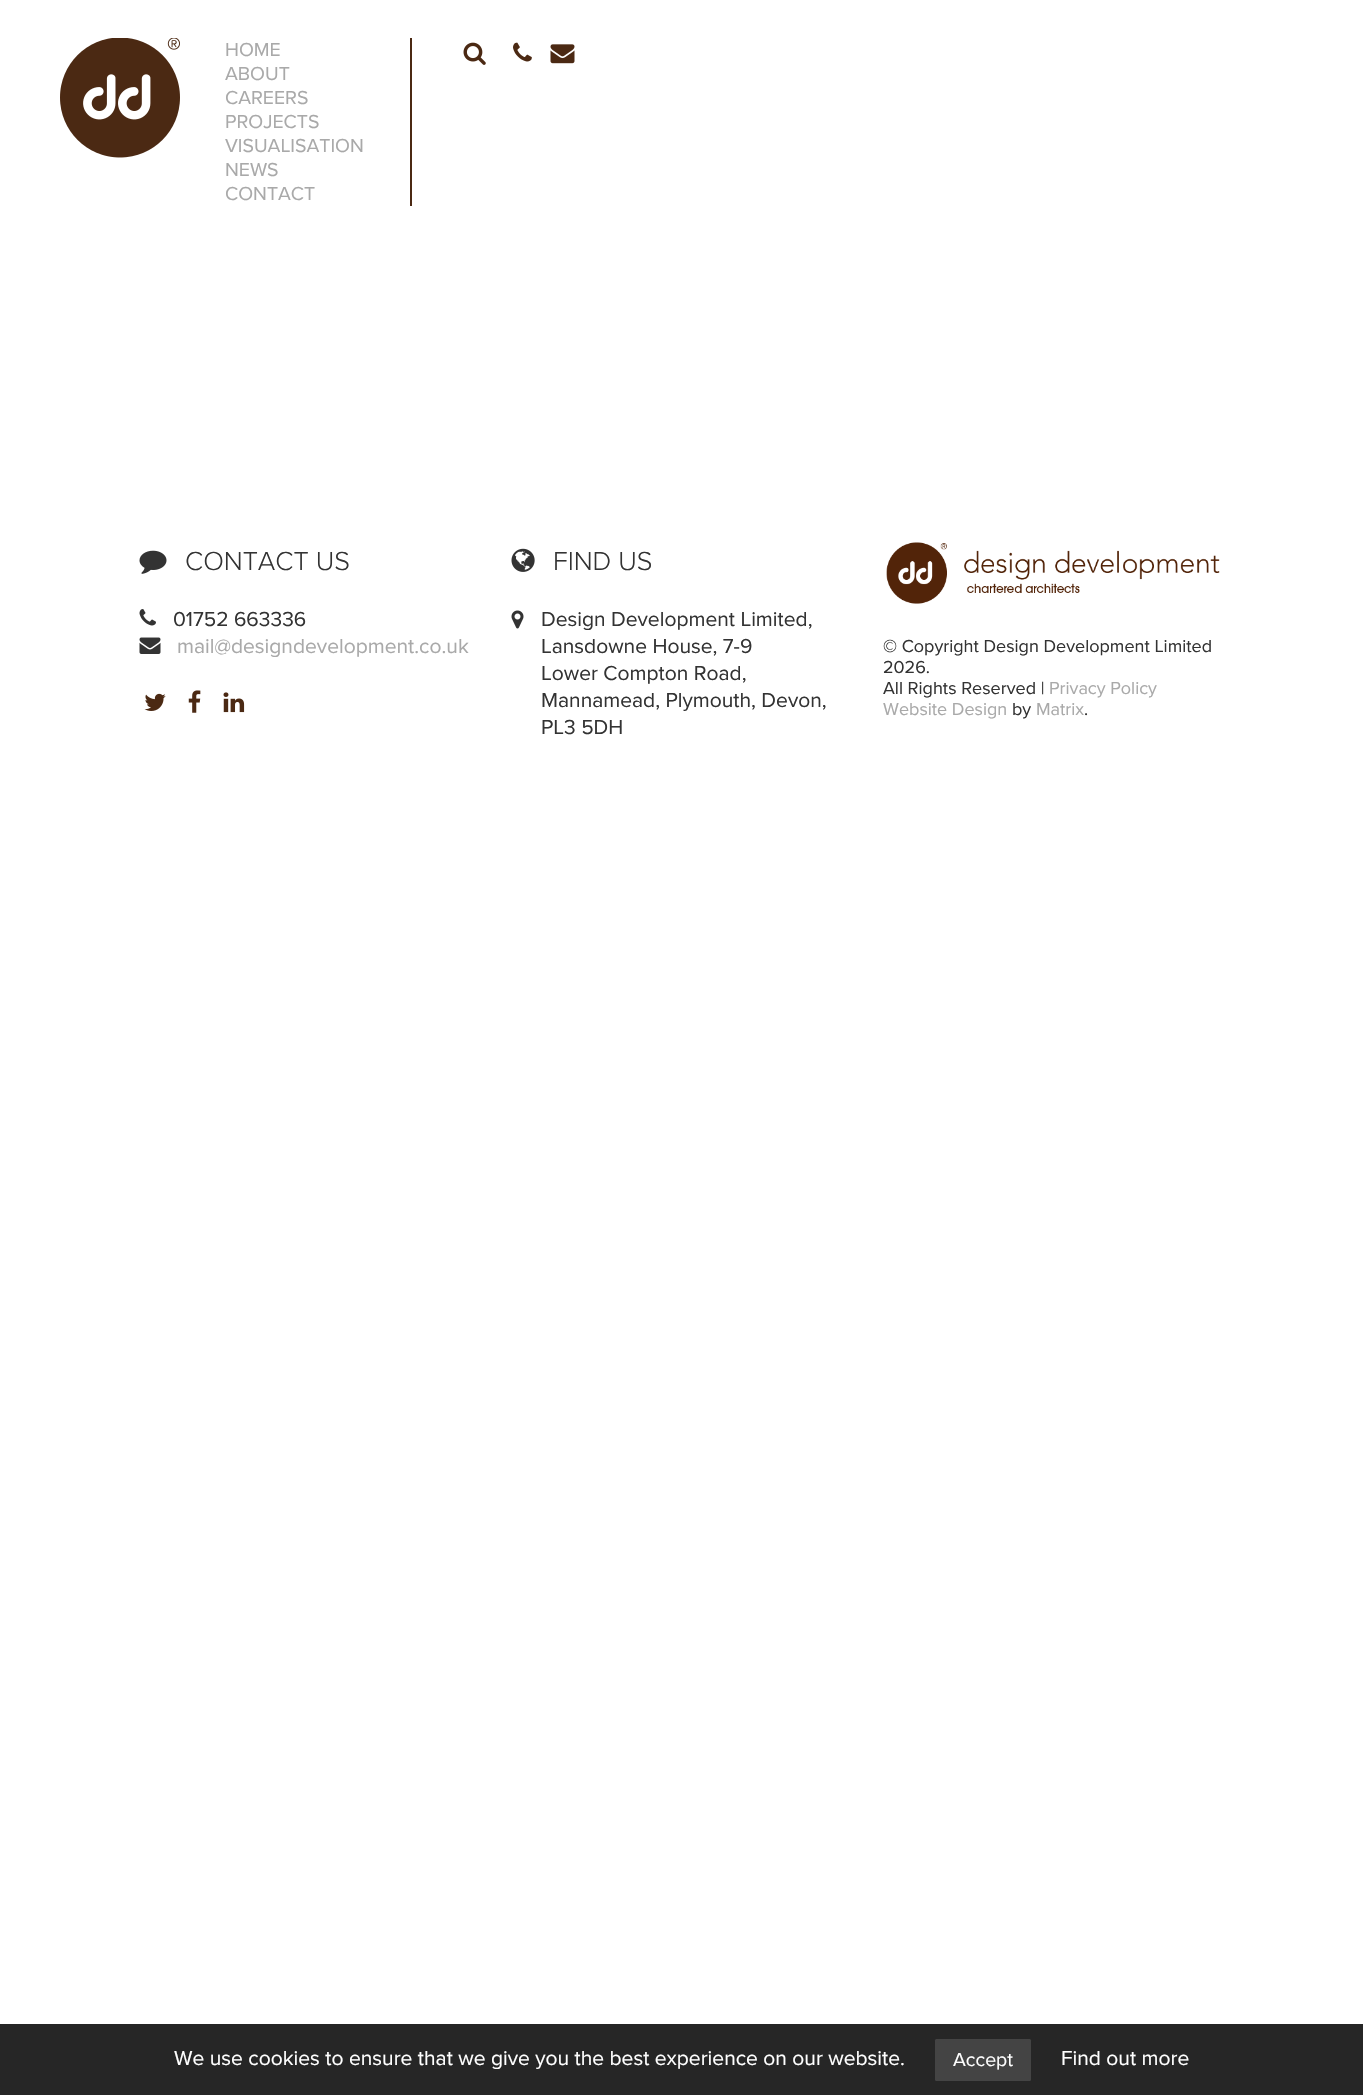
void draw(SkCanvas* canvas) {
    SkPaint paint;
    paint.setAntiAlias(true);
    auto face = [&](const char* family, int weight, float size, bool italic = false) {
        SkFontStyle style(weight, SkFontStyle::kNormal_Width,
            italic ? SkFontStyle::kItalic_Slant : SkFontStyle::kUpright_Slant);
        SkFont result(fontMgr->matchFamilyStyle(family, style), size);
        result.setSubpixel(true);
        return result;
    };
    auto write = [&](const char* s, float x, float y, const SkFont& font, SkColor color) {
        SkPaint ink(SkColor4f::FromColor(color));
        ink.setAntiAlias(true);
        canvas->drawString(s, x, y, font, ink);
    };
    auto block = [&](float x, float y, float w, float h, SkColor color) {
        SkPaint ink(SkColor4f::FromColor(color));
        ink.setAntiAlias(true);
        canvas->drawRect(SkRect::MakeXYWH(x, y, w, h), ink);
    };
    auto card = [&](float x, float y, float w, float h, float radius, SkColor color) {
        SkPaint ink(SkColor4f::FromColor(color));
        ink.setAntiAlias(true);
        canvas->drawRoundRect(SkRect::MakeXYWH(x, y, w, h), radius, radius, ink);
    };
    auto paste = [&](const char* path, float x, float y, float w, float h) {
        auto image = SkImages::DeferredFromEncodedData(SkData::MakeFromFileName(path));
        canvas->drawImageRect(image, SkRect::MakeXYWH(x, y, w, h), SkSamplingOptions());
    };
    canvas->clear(SK_ColorWHITE);
    paste("pic1.png", 60, 38, 120, 120);
    block(410, 38, 2, 168, SkColorSetRGB(75, 41, 19));
    auto kFont1 = face("Proxima Nova", 400, 19.5f);
    write("HOME", 225, 56, kFont1, SkColorSetRGB(169, 169, 169));
    write("ABOUT", 225, 80, kFont1, SkColorSetRGB(169, 169, 169));
    write("CAREERS", 225, 104, kFont1, SkColorSetRGB(169, 169, 169));
    write("PROJECTS", 225, 128, kFont1, SkColorSetRGB(169, 169, 169));
    write("VISUALISATION", 225, 152, kFont1, SkColorSetRGB(169, 169, 169));
    write("NEWS", 225, 176, kFont1, SkColorSetRGB(169, 169, 169));
    write("CONTACT", 225, 200, kFont1, SkColorSetRGB(169, 169, 169));
    paste("pic2.png", 463, 42, 23, 23);
    paste("pic3.png", 513, 42, 19, 20);
    paste("pic4.png", 550, 44, 25, 20);
    paste("pic5.png", 139, 550, 28, 24);
    auto kFont2 = face("Proxima Nova", 300, 27);
    write("CONTACT US", 185, 570, kFont2, SkColorSetRGB(51, 51, 51));
    paste("pic6.png", 139, 609, 17, 17);
    auto kFont3 = face("Proxima Nova", 400, 21);
    write("01752 663336", 173, 626, kFont3, SkColorSetRGB(51, 51, 51));
    paste("pic7.png", 139, 637, 22, 17);
    write("mail@designdevelopment.co.uk", 177, 653, kFont3, SkColorSetRGB(169, 169, 169));
    paste("pic8.png", 144, 693, 22, 18);
    paste("pic9.png", 188, 690, 13, 23);
    paste("pic10.png", 223, 692, 22, 21);
    paste("pic11.png", 511, 548, 24, 24);
    write("FIND US", 553, 570, kFont2, SkColorSetRGB(51, 51, 51));
    paste("pic12.png", 511, 610, 13, 19);
    write("Design Development Limited,", 541, 626, kFont3, SkColorSetRGB(51, 51, 51));
    write("Lansdowne House, 7-9", 541, 653, kFont3, SkColorSetRGB(51, 51, 51));
    write("Lower Compton Road,", 541, 680, kFont3, SkColorSetRGB(51, 51, 51));
    write("Mannamead, Plymouth, Devon,", 541, 707, kFont3, SkColorSetRGB(51, 51, 51));
    write("PL3 5DH", 541, 734, kFont3, SkColorSetRGB(51, 51, 51));
    paste("pic13.png", 886, 542, 334, 62);
    auto kFont4 = face("Proxima Nova", 400, 18);
    write("© Copyright Design Development Limited", 883, 652, kFont4, SkColorSetRGB(51, 51, 51));
    write("2026.", 883, 673, kFont4, SkColorSetRGB(51, 51, 51));
    write("All Rights Reserved |", 883, 694, kFont4, SkColorSetRGB(51, 51, 51));
    write("Privacy Policy", 1049, 694, kFont4, SkColorSetRGB(169, 169, 169));
    write("Website Design", 883, 715, kFont4, SkColorSetRGB(169, 169, 169));
    write("by", 1012, 715, kFont4, SkColorSetRGB(51, 51, 51));
    write("Matrix", 1036, 715, kFont4, SkColorSetRGB(169, 169, 169));
    write(".", 1084, 715, kFont4, SkColorSetRGB(51, 51, 51));
    block(0, 2024, 1363, 71, SkColorSetRGB(38, 38, 38));
    write("We use cookies to ensure that we give you the best experience on our website.", 174, 2065, kFont3, SK_ColorWHITE);
    card(935, 2039, 96, 42, 1.5f, SkColorSetRGB(68, 68, 68));
    write("Accept", 953, 2066, kFont1, SK_ColorWHITE);
    write("Find out more", 1061, 2065, kFont3, SK_ColorWHITE);
}
